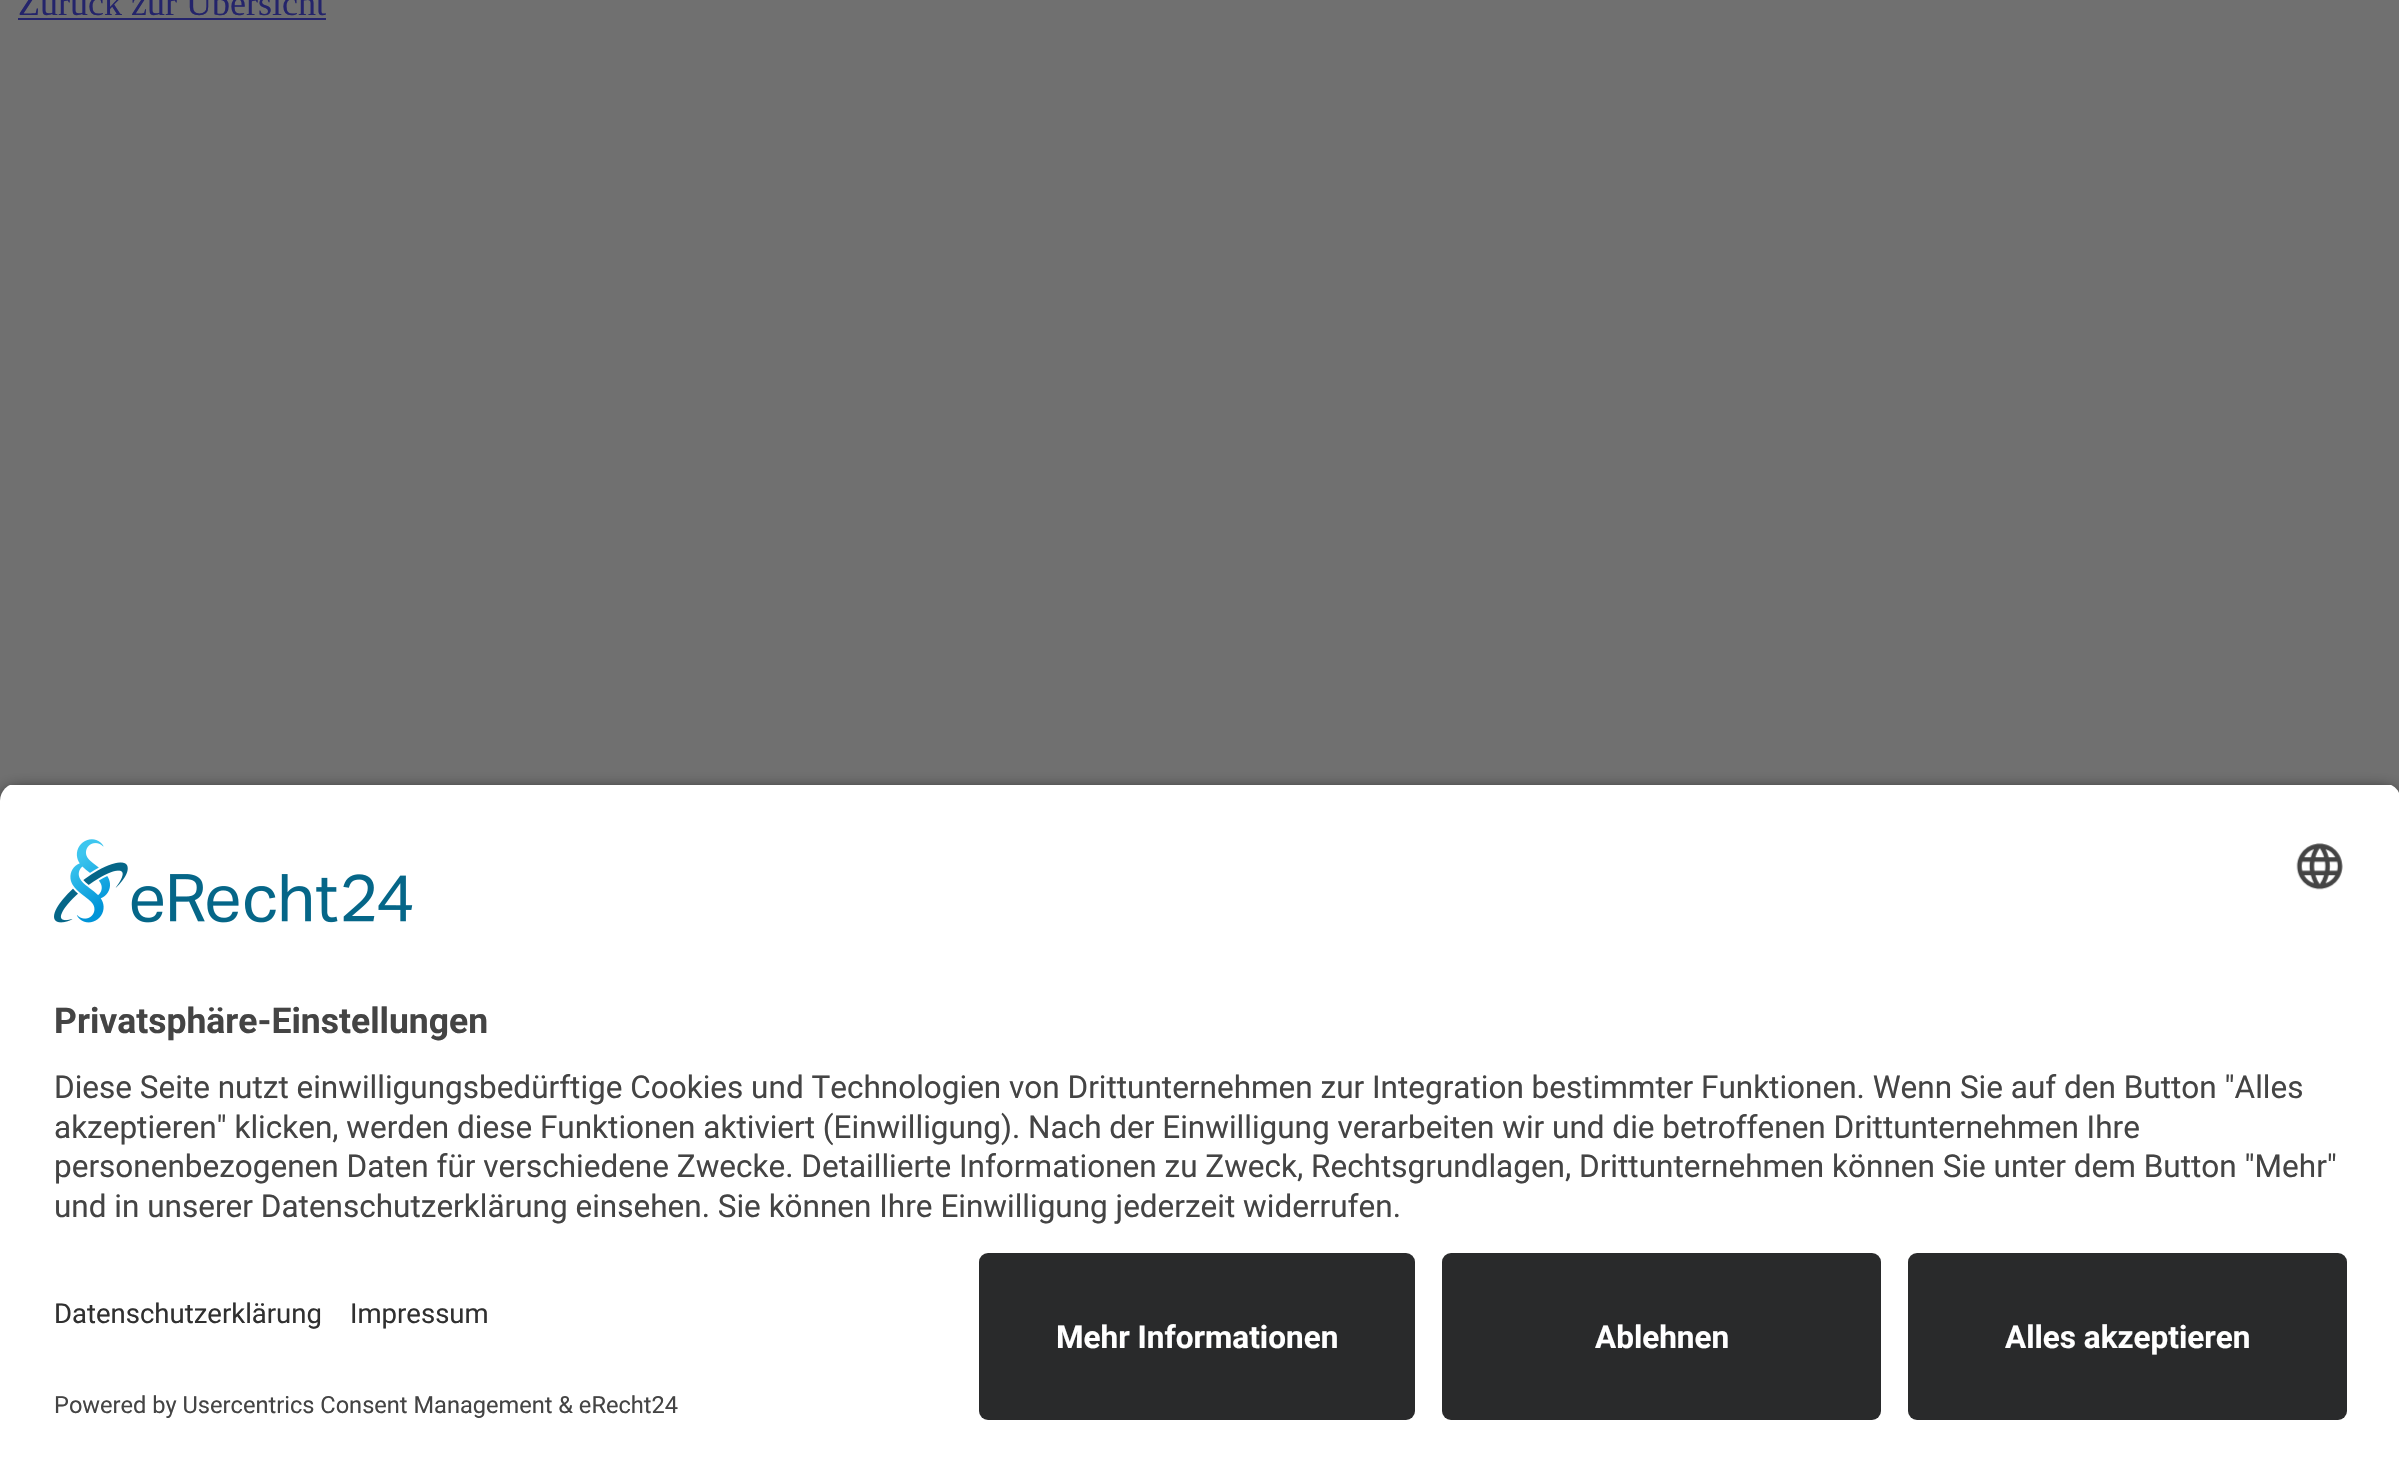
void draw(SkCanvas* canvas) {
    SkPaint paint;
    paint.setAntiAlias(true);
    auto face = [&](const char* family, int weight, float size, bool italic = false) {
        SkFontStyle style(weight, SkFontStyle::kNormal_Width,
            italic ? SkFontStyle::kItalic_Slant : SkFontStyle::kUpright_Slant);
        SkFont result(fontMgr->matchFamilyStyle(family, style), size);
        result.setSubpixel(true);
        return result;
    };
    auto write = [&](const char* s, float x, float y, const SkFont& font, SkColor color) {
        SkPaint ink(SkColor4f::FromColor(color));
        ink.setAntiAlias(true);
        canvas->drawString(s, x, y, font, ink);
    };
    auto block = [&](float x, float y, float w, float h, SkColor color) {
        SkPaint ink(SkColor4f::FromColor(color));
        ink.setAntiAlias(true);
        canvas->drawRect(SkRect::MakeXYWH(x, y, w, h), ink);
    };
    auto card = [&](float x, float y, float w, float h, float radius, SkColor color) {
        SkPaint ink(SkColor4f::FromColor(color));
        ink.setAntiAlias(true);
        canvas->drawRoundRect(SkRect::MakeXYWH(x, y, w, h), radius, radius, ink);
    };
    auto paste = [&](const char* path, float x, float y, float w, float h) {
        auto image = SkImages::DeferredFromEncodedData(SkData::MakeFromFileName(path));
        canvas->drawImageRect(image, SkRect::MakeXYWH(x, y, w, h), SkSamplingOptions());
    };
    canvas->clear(SkColorSetRGB(112, 112, 112));
    auto kFont1 = face("Liberation Serif", 400, 36);
    write("Zurück zur Übersicht", 18, 15, kFont1, SkColorSetRGB(36, 36, 107));
    block(18, 18, 308, 2, SkColorSetRGB(36, 36, 107));
    paint.setColor(SkColorSetARGB(204, 0, 0, 0));
    paint.setMaskFilter(SkMaskFilter::MakeBlur(kNormal_SkBlurStyle, 8));
    canvas->drawRoundRect(SkRect::MakeXYWH(0, 790, 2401, 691), 18, 18, paint);
    paint.setMaskFilter(nullptr);
    canvas->save();
    canvas->clipPath(SkPathBuilder().moveTo(18, 783).lineTo(2383, 783).cubicTo(2393, 783, 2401, 791, 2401, 801).lineTo(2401, 1235).lineTo(0, 1235).lineTo(0, 801).cubicTo(0, 791, 8, 783, 18, 783).close().detach(), true);
    block(0, 785, 2399, 450, SK_ColorWHITE);
    canvas->restore();
    paste("pic1.png", 54, 839, 359, 84);
    paste("pic2.png", 2296, 843, 47, 47);
    auto kFont2 = face("Roboto", 700, 35.5f);
    write("Privatsphäre-Einstellungen", 54, 1033, kFont2, SkColorSetRGB(68, 68, 68));
    auto kFont3 = face("Roboto", 400, 31.5f);
    write("Diese Seite nutzt einwilligungsbedürftige Cookies und Technologien von Drittunternehmen zur Integration bestimmter Funktionen. Wenn Sie auf den Button \"Alles", 54, 1098, kFont3, SkColorSetRGB(68, 68, 68));
    write("akzeptieren\" klicken, werden diese Funktionen aktiviert (Einwilligung). Nach der Einwilligung verarbeiten wir und die betroffenen Drittunternehmen Ihre", 54, 1138, kFont3, SkColorSetRGB(68, 68, 68));
    write("personenbezogenen Daten für verschiedene Zwecke. Detaillierte Informationen zu Zweck, Rechtsgrundlagen, Drittunternehmen können Sie unter dem Button \"Mehr\"", 54, 1177, kFont3, SkColorSetRGB(68, 68, 68));
    write("und in unserer Datenschutzerklärung einsehen. Sie können Ihre Einwilligung jederzeit widerrufen.", 54, 1217, kFont3, SkColorSetRGB(68, 68, 68));
    block(0, 1235, 2399, 237, SK_ColorWHITE);
    auto kFont4 = face("Roboto", 400, 27.5f);
    write("Datenschutzerklärung", 54, 1323, kFont4, SkColorSetRGB(48, 48, 48));
    write("Impressum", 350, 1323, kFont4, SkColorSetRGB(48, 48, 48));
    auto kFont5 = face("Roboto", 400, 23.6f);
    write("Powered by Usercentrics Consent Management & eRecht24", 54, 1413, kFont5, SkColorSetRGB(68, 68, 68));
    card(979, 1253, 436, 167, 9, SkColorSetRGB(41, 42, 43));
    auto kFont6 = face("Roboto", 700, 31.5f);
    write("Mehr Informationen", 1056, 1348, kFont6, SK_ColorWHITE);
    card(1442, 1253, 439, 167, 9, SkColorSetRGB(41, 42, 43));
    write("Ablehnen", 1595, 1348, kFont6, SK_ColorWHITE);
    card(1908, 1253, 439, 167, 9, SkColorSetRGB(41, 42, 43));
    write("Alles akzeptieren", 2005, 1348, kFont6, SK_ColorWHITE);
}
